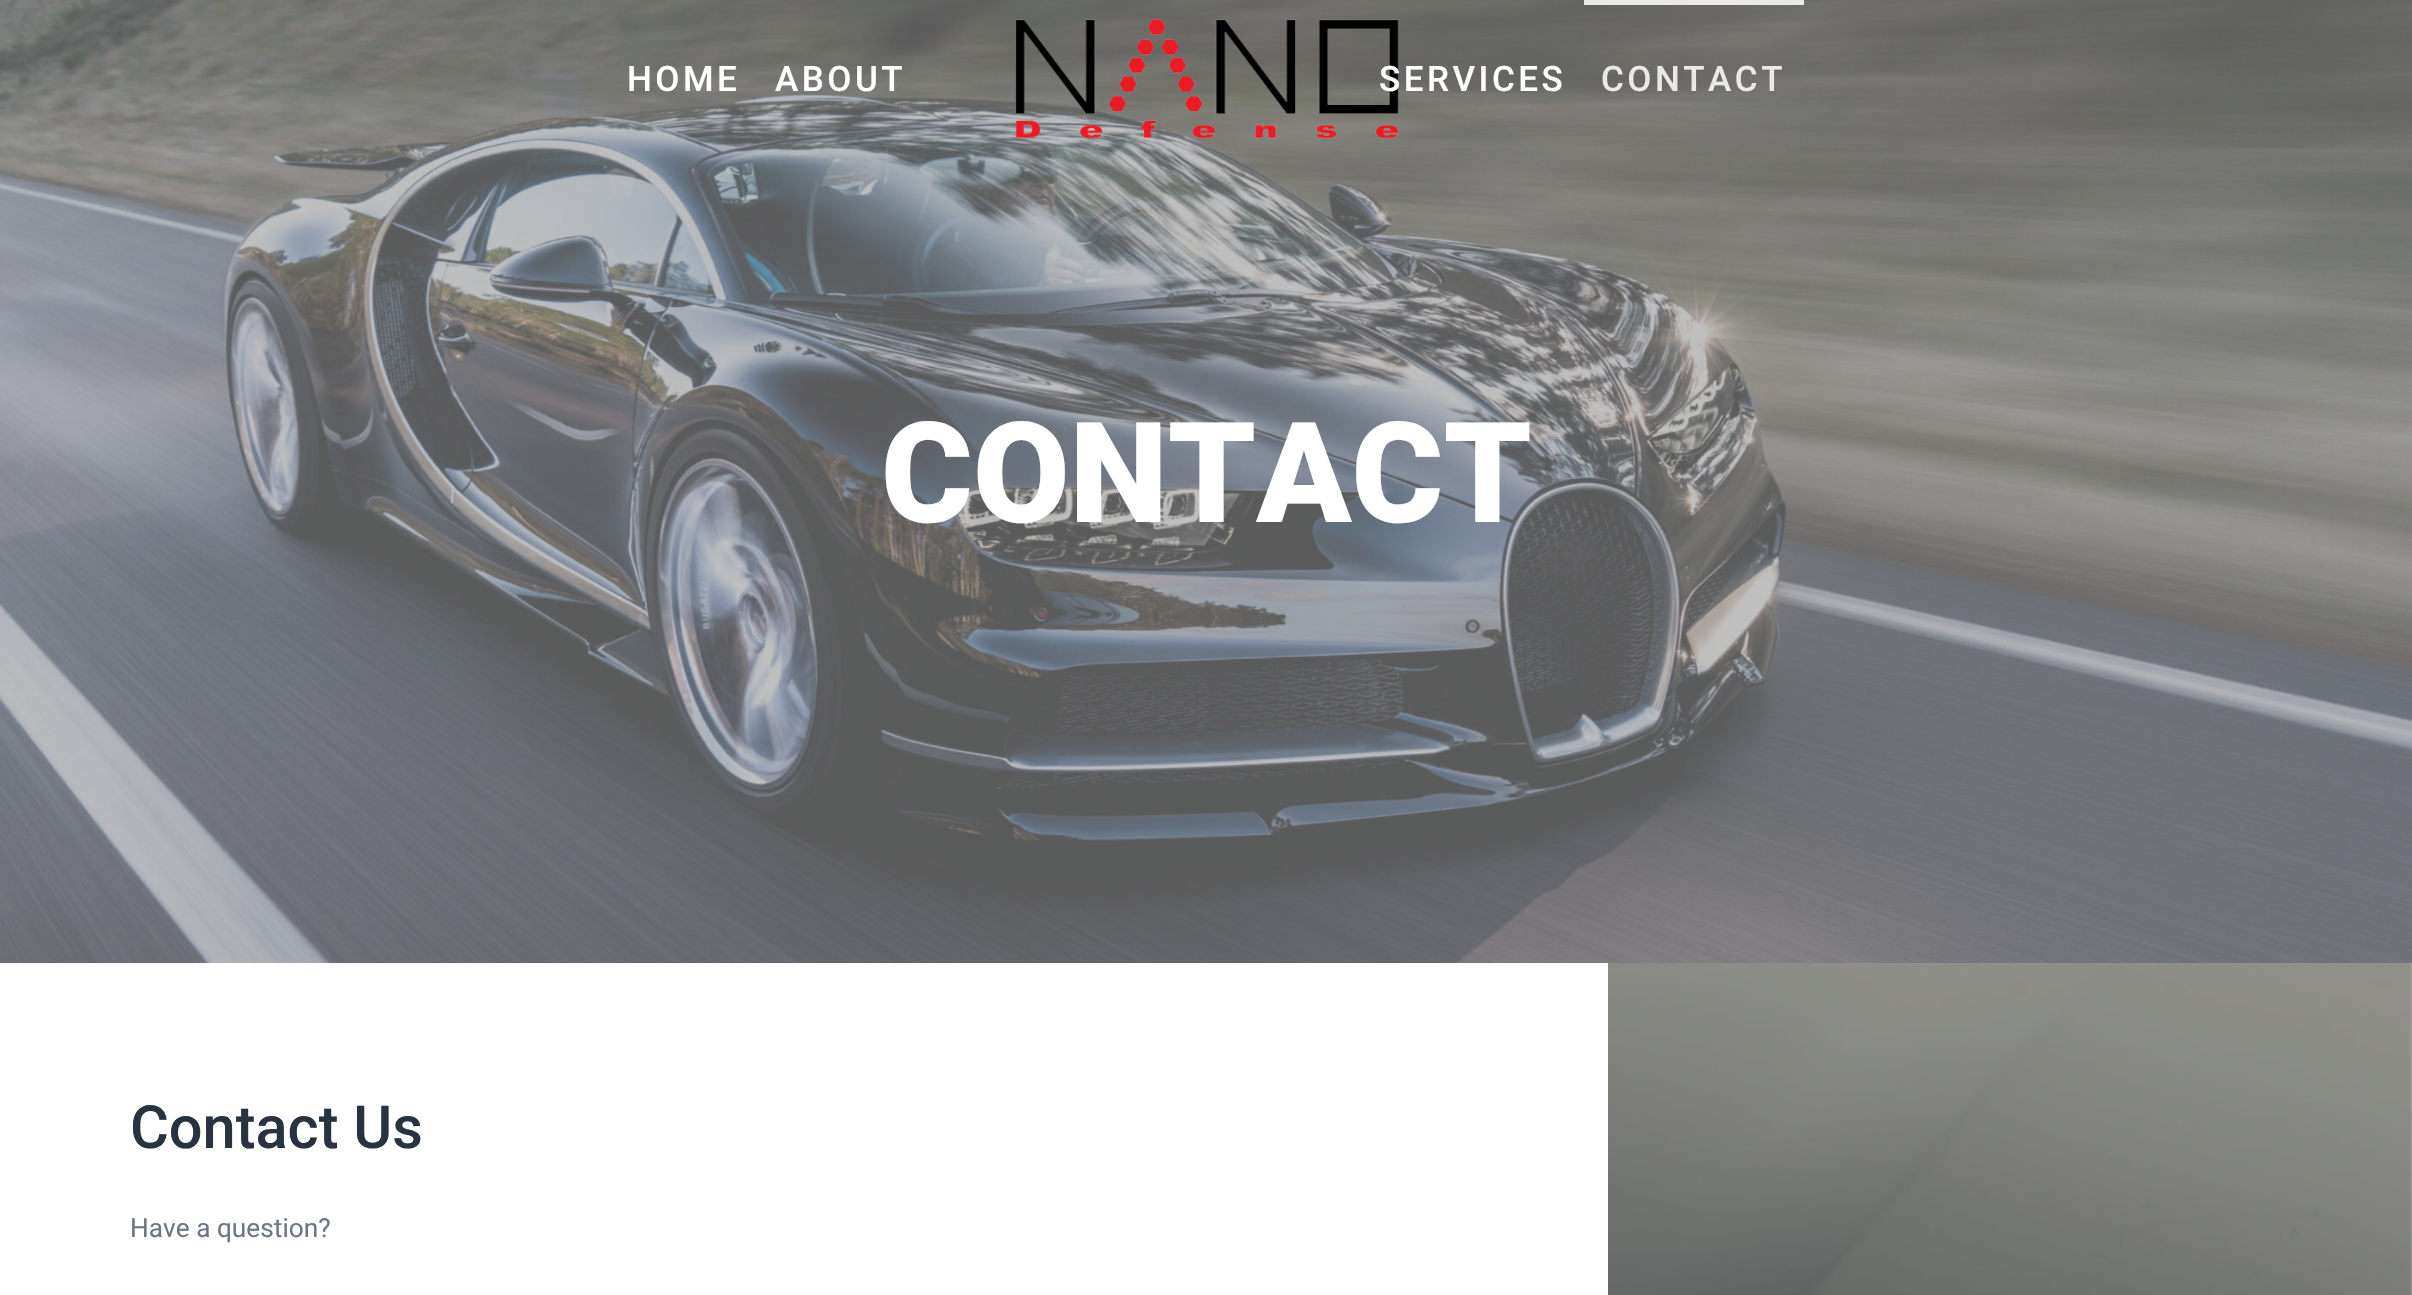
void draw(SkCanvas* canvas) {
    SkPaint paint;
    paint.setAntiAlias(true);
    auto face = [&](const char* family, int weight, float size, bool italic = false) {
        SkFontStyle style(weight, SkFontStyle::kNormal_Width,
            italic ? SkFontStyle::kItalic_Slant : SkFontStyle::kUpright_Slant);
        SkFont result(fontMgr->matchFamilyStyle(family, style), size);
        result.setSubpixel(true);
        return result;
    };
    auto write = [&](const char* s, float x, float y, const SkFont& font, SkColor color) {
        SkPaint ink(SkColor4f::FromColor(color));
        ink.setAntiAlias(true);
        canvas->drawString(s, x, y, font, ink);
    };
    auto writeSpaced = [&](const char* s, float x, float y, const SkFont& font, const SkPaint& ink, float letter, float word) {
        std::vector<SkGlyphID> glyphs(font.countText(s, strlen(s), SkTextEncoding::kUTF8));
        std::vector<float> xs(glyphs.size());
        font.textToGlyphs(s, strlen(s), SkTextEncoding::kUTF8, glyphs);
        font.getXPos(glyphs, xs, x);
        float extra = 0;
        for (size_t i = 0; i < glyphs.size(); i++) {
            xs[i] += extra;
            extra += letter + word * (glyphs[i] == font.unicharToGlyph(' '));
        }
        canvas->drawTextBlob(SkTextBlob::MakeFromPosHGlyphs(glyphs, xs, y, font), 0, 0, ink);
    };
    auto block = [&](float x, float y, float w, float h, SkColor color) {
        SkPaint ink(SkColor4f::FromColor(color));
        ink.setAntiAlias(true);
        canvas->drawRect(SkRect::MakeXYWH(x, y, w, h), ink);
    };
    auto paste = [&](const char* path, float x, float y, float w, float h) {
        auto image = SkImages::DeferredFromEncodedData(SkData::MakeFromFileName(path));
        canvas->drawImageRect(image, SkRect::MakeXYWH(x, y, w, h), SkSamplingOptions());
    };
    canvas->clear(SK_ColorWHITE);
    paste("pic2.png", 0, 0, 2412, 963);
    paste("pic1.png", 1015, 19, 384, 120);
    auto kFont1 = face("Roboto", 500, 35);
    paint.setColor(SK_ColorWHITE);
    writeSpaced("HOME", 627, 91, kFont1, paint, 3.5f, 0);
    writeSpaced("ABOUT", 775, 91, kFont1, paint, 3.5f, 0);
    writeSpaced("SERVICES", 1379, 91, kFont1, paint, 3.5f, 0);
    block(1584, 0, 220, 5, SkColorSetARGB(217, 255, 255, 255));
    paint.setColor(SkColorSetRGB(233, 233, 232));
    writeSpaced("CONTACT", 1601, 91, kFont1, paint, 3.5f, 0);
    auto kFont2 = face("Roboto", 900, 140);
    write("CONTACT", 881, 522, kFont2, SK_ColorWHITE);
    auto kFont3 = face("Roboto", 500, 59.5f);
    write("Contact Us", 130, 1148, kFont3, SkColorSetRGB(41, 51, 64));
    auto kFont4 = face("Roboto", 400, 26.25f);
    write("Have a question?", 130, 1237, kFont4, SkColorSetRGB(109, 119, 131));
    paste("pic3.png", 1608, 963, 804, 332);
}
